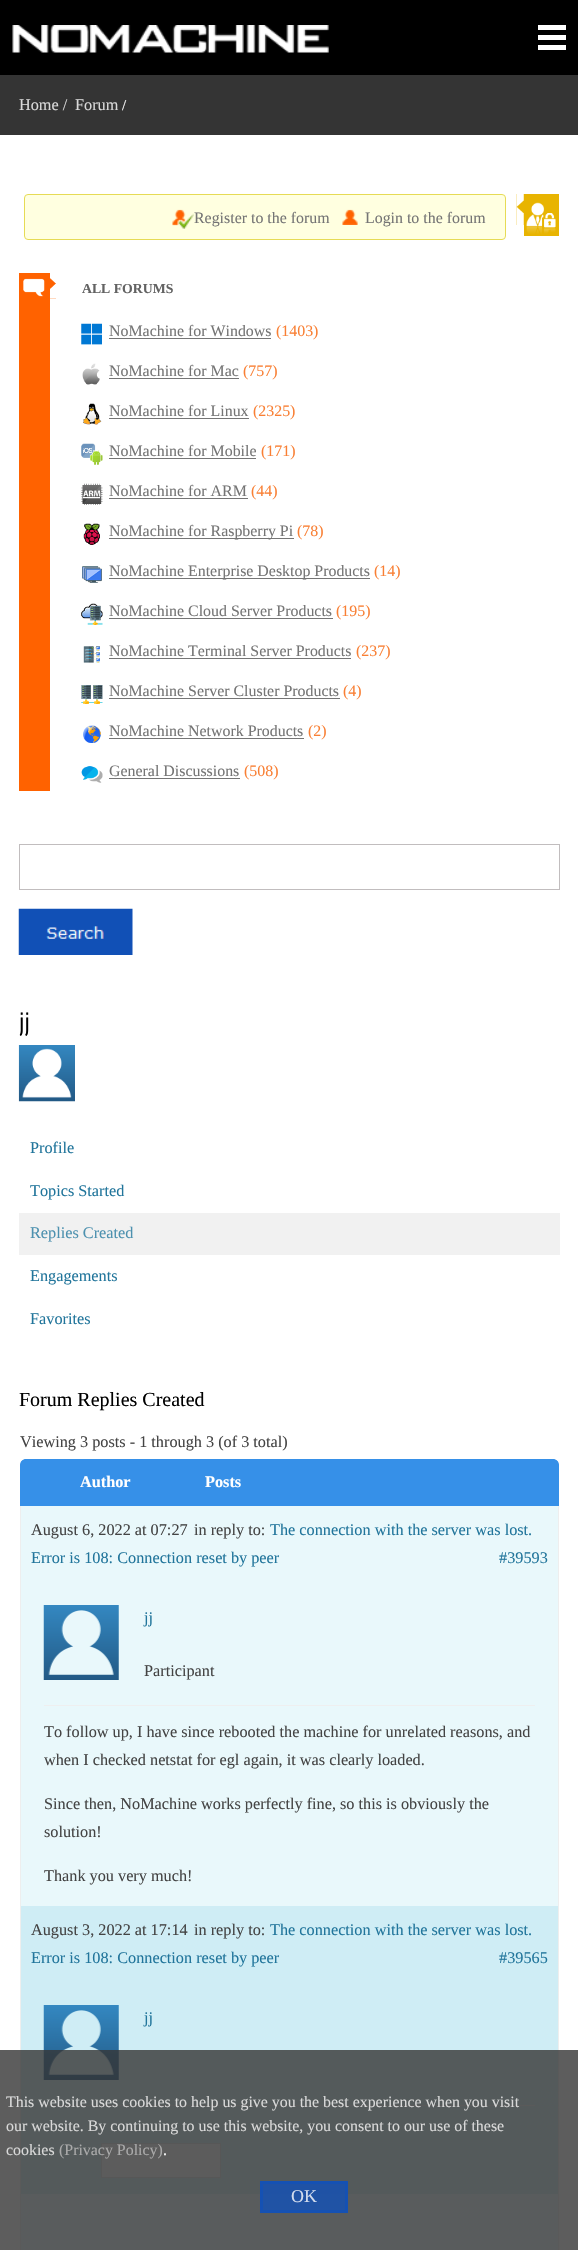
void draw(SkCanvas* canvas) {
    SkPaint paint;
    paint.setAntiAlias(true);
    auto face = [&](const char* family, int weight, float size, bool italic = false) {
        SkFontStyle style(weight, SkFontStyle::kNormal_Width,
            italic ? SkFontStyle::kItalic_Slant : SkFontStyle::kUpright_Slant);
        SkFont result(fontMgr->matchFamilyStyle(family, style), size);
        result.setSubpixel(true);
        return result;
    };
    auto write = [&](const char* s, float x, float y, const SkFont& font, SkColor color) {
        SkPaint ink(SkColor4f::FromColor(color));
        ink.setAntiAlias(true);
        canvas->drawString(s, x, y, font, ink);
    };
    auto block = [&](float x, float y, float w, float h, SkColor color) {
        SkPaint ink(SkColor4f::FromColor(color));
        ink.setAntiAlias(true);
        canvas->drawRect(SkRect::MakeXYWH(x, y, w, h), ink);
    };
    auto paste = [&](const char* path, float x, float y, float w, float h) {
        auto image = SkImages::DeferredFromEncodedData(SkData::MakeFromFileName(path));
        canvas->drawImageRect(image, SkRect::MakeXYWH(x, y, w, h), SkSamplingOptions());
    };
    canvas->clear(SK_ColorWHITE);
    block(0, 0, 578, 75, SK_ColorBLACK);
    paste("pic1.png", 12, 25, 317, 28);
    block(538, 25, 28, 5, SK_ColorWHITE);
    block(538, 35, 28, 5, SK_ColorWHITE);
    block(538, 45, 28, 5, SK_ColorWHITE);
    block(0, 75, 578, 60, SkColorSetRGB(52, 52, 52));
    auto kFont1 = face("Liberation Serif", 400, 16.25f);
    write("Home /", 19, 110, kFont1, SkColorSetRGB(217, 217, 217));
    write("Forum", 75, 110, kFont1, SkColorSetRGB(217, 217, 217));
    auto kFont2 = face("Liberation Serif", 400, 15);
    write("/", 122, 110, kFont2, SK_ColorWHITE);
    paint.setColor(SkColorSetRGB(255, 255, 224));
    canvas->drawRoundRect(SkRect::MakeXYWH(24.5f, 194.5f, 481, 45), 3.5f, 3.5f, paint);
    paint.setStyle(SkPaint::kStroke_Style);
    paint.setStrokeWidth(1);
    paint.setColor(SkColorSetRGB(230, 219, 85));
    canvas->drawRoundRect(SkRect::MakeXYWH(24.5f, 194.5f, 481, 45), 3.5f, 3.5f, paint);
    paste("pic2.png", 172, 209, 22, 20);
    auto kFont3 = face("Liberation Serif", 400, 15.9f);
    write("Register to the forum", 194, 223, kFont3, SkColorSetRGB(117, 117, 117));
    paste("pic3.png", 342, 209, 16, 16);
    write("Login to the forum", 365, 223, kFont3, SkColorSetRGB(117, 117, 117));
    block(516, 194, 8, 31, SkColorSetRGB(232, 180, 1));
    paste("pic4.png", 516, 194, 8, 31);
    block(524, 194, 35, 42, SkColorSetRGB(232, 180, 1));
    paste("pic5.png", 526, 202, 30, 32);
    block(19, 273, 31, 518, SkColorSetRGB(255, 98, 0));
    paste("pic6.png", 23, 278, 22, 19);
    block(50, 273, 6, 26, SkColorSetRGB(255, 98, 0));
    paste("pic7.png", 50, 273, 6, 26);
    auto kFont4 = face("Liberation Serif", 700, 13.75f);
    write("ALL FORUMS", 82, 293, kFont4, SkColorSetRGB(99, 99, 99));
    paste("pic8.png", 81, 323, 21, 22);
    write("NoMachine for Windows", 109, 336, kFont3, SkColorSetRGB(117, 117, 117));
    block(109, 338, 162, 1, SkColorSetRGB(117, 117, 117));
    write("(1403)", 276, 336, kFont3, SkColorSetRGB(249, 127, 52));
    paste("pic9.png", 82, 363, 18, 22);
    write("NoMachine for Mac", 109, 376, kFont3, SkColorSetRGB(117, 117, 117));
    block(109, 378, 130, 1, SkColorSetRGB(117, 117, 117));
    write("(757)", 243, 376, kFont3, SkColorSetRGB(249, 127, 52));
    paste("pic10.png", 83, 403, 19, 22);
    write("NoMachine for Linux", 109, 416, kFont3, SkColorSetRGB(117, 117, 117));
    block(109, 418, 140, 1, SkColorSetRGB(117, 117, 117));
    write("(2325)", 253, 416, kFont3, SkColorSetRGB(249, 127, 52));
    paste("pic11.png", 81, 443, 22, 22);
    write("NoMachine for Mobile", 109, 456, kFont3, SkColorSetRGB(117, 117, 117));
    block(109, 458, 147, 1, SkColorSetRGB(117, 117, 117));
    write("(171)", 261, 456, kFont3, SkColorSetRGB(249, 127, 52));
    paste("pic12.png", 81, 483, 22, 22);
    write("NoMachine for ARM", 109, 496, kFont3, SkColorSetRGB(117, 117, 117));
    block(109, 498, 139, 1, SkColorSetRGB(117, 117, 117));
    write("(44)", 251, 496, kFont3, SkColorSetRGB(249, 127, 52));
    paste("pic13.png", 83, 523, 17, 22);
    block(109, 538, 185, 1, SkColorSetRGB(117, 117, 117));
    write("NoMachine for Raspberry Pi", 109, 536, kFont3, SkColorSetRGB(117, 117, 117));
    write("(78)", 297, 536, kFont3, SkColorSetRGB(249, 127, 52));
    paste("pic14.png", 82, 566, 20, 17);
    block(109, 578, 261, 1, SkColorSetRGB(117, 117, 117));
    write("NoMachine Enterprise Desktop Products", 109, 576, kFont3, SkColorSetRGB(117, 117, 117));
    write("(14)", 374, 576, kFont3, SkColorSetRGB(249, 127, 52));
    paste("pic15.png", 81, 603, 22, 22);
    write("NoMachine Cloud Server Products", 109, 616, kFont3, SkColorSetRGB(117, 117, 117));
    block(109, 618, 224, 1, SkColorSetRGB(117, 117, 117));
    write("(195)", 336, 616, kFont3, SkColorSetRGB(249, 127, 52));
    paste("pic16.png", 83, 646, 17, 17);
    write("NoMachine Terminal Server Products", 109, 656, kFont3, SkColorSetRGB(117, 117, 117));
    block(109, 658, 242, 1, SkColorSetRGB(117, 117, 117));
    write("(237)", 356, 656, kFont3, SkColorSetRGB(249, 127, 52));
    paste("pic17.png", 81, 685, 22, 19);
    write("NoMachine Server Cluster Products", 109, 696, kFont3, SkColorSetRGB(117, 117, 117));
    block(109, 698, 231, 1, SkColorSetRGB(117, 117, 117));
    write("(4)", 343, 696, kFont3, SkColorSetRGB(249, 127, 52));
    paste("pic18.png", 83, 725, 18, 18);
    write("NoMachine Network Products", 109, 736, kFont3, SkColorSetRGB(117, 117, 117));
    block(109, 738, 195, 1, SkColorSetRGB(117, 117, 117));
    write("(2)", 308, 736, kFont3, SkColorSetRGB(249, 127, 52));
    paste("pic19.png", 81, 766, 22, 17);
    write("General Discussions", 109, 776, kFont3, SkColorSetRGB(117, 117, 117));
    block(109, 778, 131, 1, SkColorSetRGB(117, 117, 117));
    write("(508)", 244, 776, kFont3, SkColorSetRGB(249, 127, 52));
    paint.setColor(SkColorSetRGB(193, 189, 190));
    canvas->drawRect(SkRect::MakeXYWH(19.5f, 844.5f, 540, 45), paint);
    paste("pic20.png", 18, 908, 115, 47);
    auto kFont5 = face("Gudea", 400, 25);
    write("jj", 19, 1030, kFont5, SK_ColorBLACK);
    paste("pic21.png", 18, 1045, 57, 57);
    write("Profile", 30, 1153, kFont1, SkColorSetRGB(33, 117, 155));
    write("Topics Started", 30, 1196, kFont1, SkColorSetRGB(33, 117, 155));
    block(19, 1213, 541, 42, SkColorSetRGB(241, 241, 241));
    write("Replies Created", 30, 1238, kFont1, SkColorSetRGB(77, 145, 175));
    write("Engagements", 30, 1281, kFont1, SkColorSetRGB(33, 117, 155));
    write("Favorites", 30, 1324, kFont1, SkColorSetRGB(33, 117, 155));
    auto kFont6 = face("Liberation Serif", 400, 20);
    write("Forum Replies Created", 19, 1406, kFont6, SK_ColorBLACK);
    write("Viewing 3 posts - 1 through 3 (of 3 total)", 20, 1447, kFont1, SkColorSetRGB(68, 68, 68));
    canvas->save();
    canvas->clipPath(SkPathBuilder().moveTo(25, 1459).lineTo(554, 1459).cubicTo(557, 1459, 559, 1461, 559, 1464).lineTo(559, 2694).lineTo(20, 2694).lineTo(20, 1464).cubicTo(20, 1461, 22, 1459, 25, 1459).close().detach(), true);
    paint.setStyle(SkPaint::kFill_Style);
    paint.setColor(SkColorSetRGB(54, 144, 232));
    canvas->drawPath(SkPathBuilder().moveTo(26, 1459).lineTo(553, 1459).cubicTo(556.5f, 1459, 559, 1461.5f, 559, 1465).lineTo(559, 1506).lineTo(20, 1506).lineTo(20, 1465).cubicTo(20, 1461.5f, 22.5f, 1459, 26, 1459).close().detach(), paint);
    canvas->restore();
    auto kFont7 = face("Liberation Serif", 700, 16.25f);
    write("Author", 80, 1487, kFont7, SK_ColorWHITE);
    write("Posts", 205, 1487, kFont7, SK_ColorWHITE);
    block(558, 1506, 1, 744, SkColorSetRGB(238, 238, 238));
    block(20, 1506, 1, 744, SkColorSetRGB(238, 238, 238));
    block(21, 1506, 537, 400, SkColorSetRGB(233, 248, 251));
    write("August 6, 2022 at 07:27", 31, 1535, kFont1, SkColorSetRGB(68, 68, 68));
    write("in reply to:", 194, 1535, kFont1, SkColorSetRGB(68, 68, 68));
    write("The connection with the server was lost.", 270, 1535, kFont1, SkColorSetRGB(33, 117, 155));
    write("Error is 108: Connection reset by peer", 31, 1563, kFont1, SkColorSetRGB(33, 117, 155));
    write("#39593", 499, 1563, kFont1, SkColorSetRGB(33, 117, 155));
    block(44, 1705, 491, 1, SkColorSetRGB(239, 239, 239));
    paste("pic22.png", 43, 1605, 76, 75);
    write("jj", 144, 1623, kFont1, SkColorSetRGB(33, 117, 155));
    write("Participant", 144, 1676, kFont1, SkColorSetRGB(68, 68, 68));
    write("To follow up, I have since rebooted the machine for unrelated reasons, and", 44, 1737, kFont1, SkColorSetRGB(68, 68, 68));
    write("when I checked netstat for egl again, it was clearly loaded.", 44, 1765, kFont1, SkColorSetRGB(68, 68, 68));
    write("Since then, NoMachine works perfectly fine, so this is obviously the", 44, 1809, kFont1, SkColorSetRGB(68, 68, 68));
    write("solution!", 44, 1837, kFont1, SkColorSetRGB(68, 68, 68));
    write("Thank you very much!", 44, 1881, kFont1, SkColorSetRGB(68, 68, 68));
    block(21, 1906, 537, 288, SkColorSetRGB(207, 237, 245));
    write("August 3, 2022 at 17:14", 31, 1935, kFont1, SkColorSetRGB(68, 68, 68));
    write("in reply to:", 194, 1935, kFont1, SkColorSetRGB(68, 68, 68));
    write("The connection with the server was lost.", 270, 1935, kFont1, SkColorSetRGB(33, 117, 155));
    write("Error is 108: Connection reset by peer", 31, 1963, kFont1, SkColorSetRGB(33, 117, 155));
    write("#39565", 499, 1963, kFont1, SkColorSetRGB(33, 117, 155));
    block(44, 2105, 491, 1, SkColorSetRGB(239, 239, 239));
    paste("pic23.png", 43, 2005, 76, 75);
    write("jj", 144, 2023, kFont1, SkColorSetRGB(33, 117, 155));
    paint.setColor(SkColorSetRGB(249, 249, 249));
    canvas->drawRect(SkRect::MakeXYWH(101.5f, 2143.5f, 119, 34), paint);
    paint.setStyle(SkPaint::kStroke_Style);
    paint.setColor(SkColorSetRGB(221, 221, 221));
    canvas->drawRect(SkRect::MakeXYWH(101.5f, 2143.5f, 119, 34), paint);
    block(21, 2194, 537, 56, SkColorSetRGB(233, 248, 251));
    block(0, 2050, 578, 200, SkColorSetARGB(204, 52, 52, 52));
    write("This website uses cookies to help us give you the best experience when you visit", 6, 2107, kFont3, SkColorSetRGB(217, 217, 217));
    write("our website. By continuing to use this website, you consent to our use of these", 6, 2131, kFont3, SkColorSetRGB(217, 217, 217));
    write("cookies", 6, 2155, kFont3, SkColorSetRGB(217, 217, 217));
    write("(Privacy Policy)", 59, 2155, kFont3, SkColorSetRGB(170, 170, 170));
    write(".", 163, 2155, kFont3, SK_ColorWHITE);
    block(260, 2181, 88, 32, SkColorSetARGB(204, 17, 80, 182));
    paint.setStrokeWidth(3);
    paint.setColor(SkColorSetARGB(204, 17, 80, 182));
    canvas->drawRect(SkRect::MakeXYWH(261.5f, 2182.5f, 85, 29), paint);
    auto kFont8 = face("Liberation Serif", 400, 18);
    write("OK", 291, 2202, kFont8, SkColorSetRGB(210, 220, 237));
}
